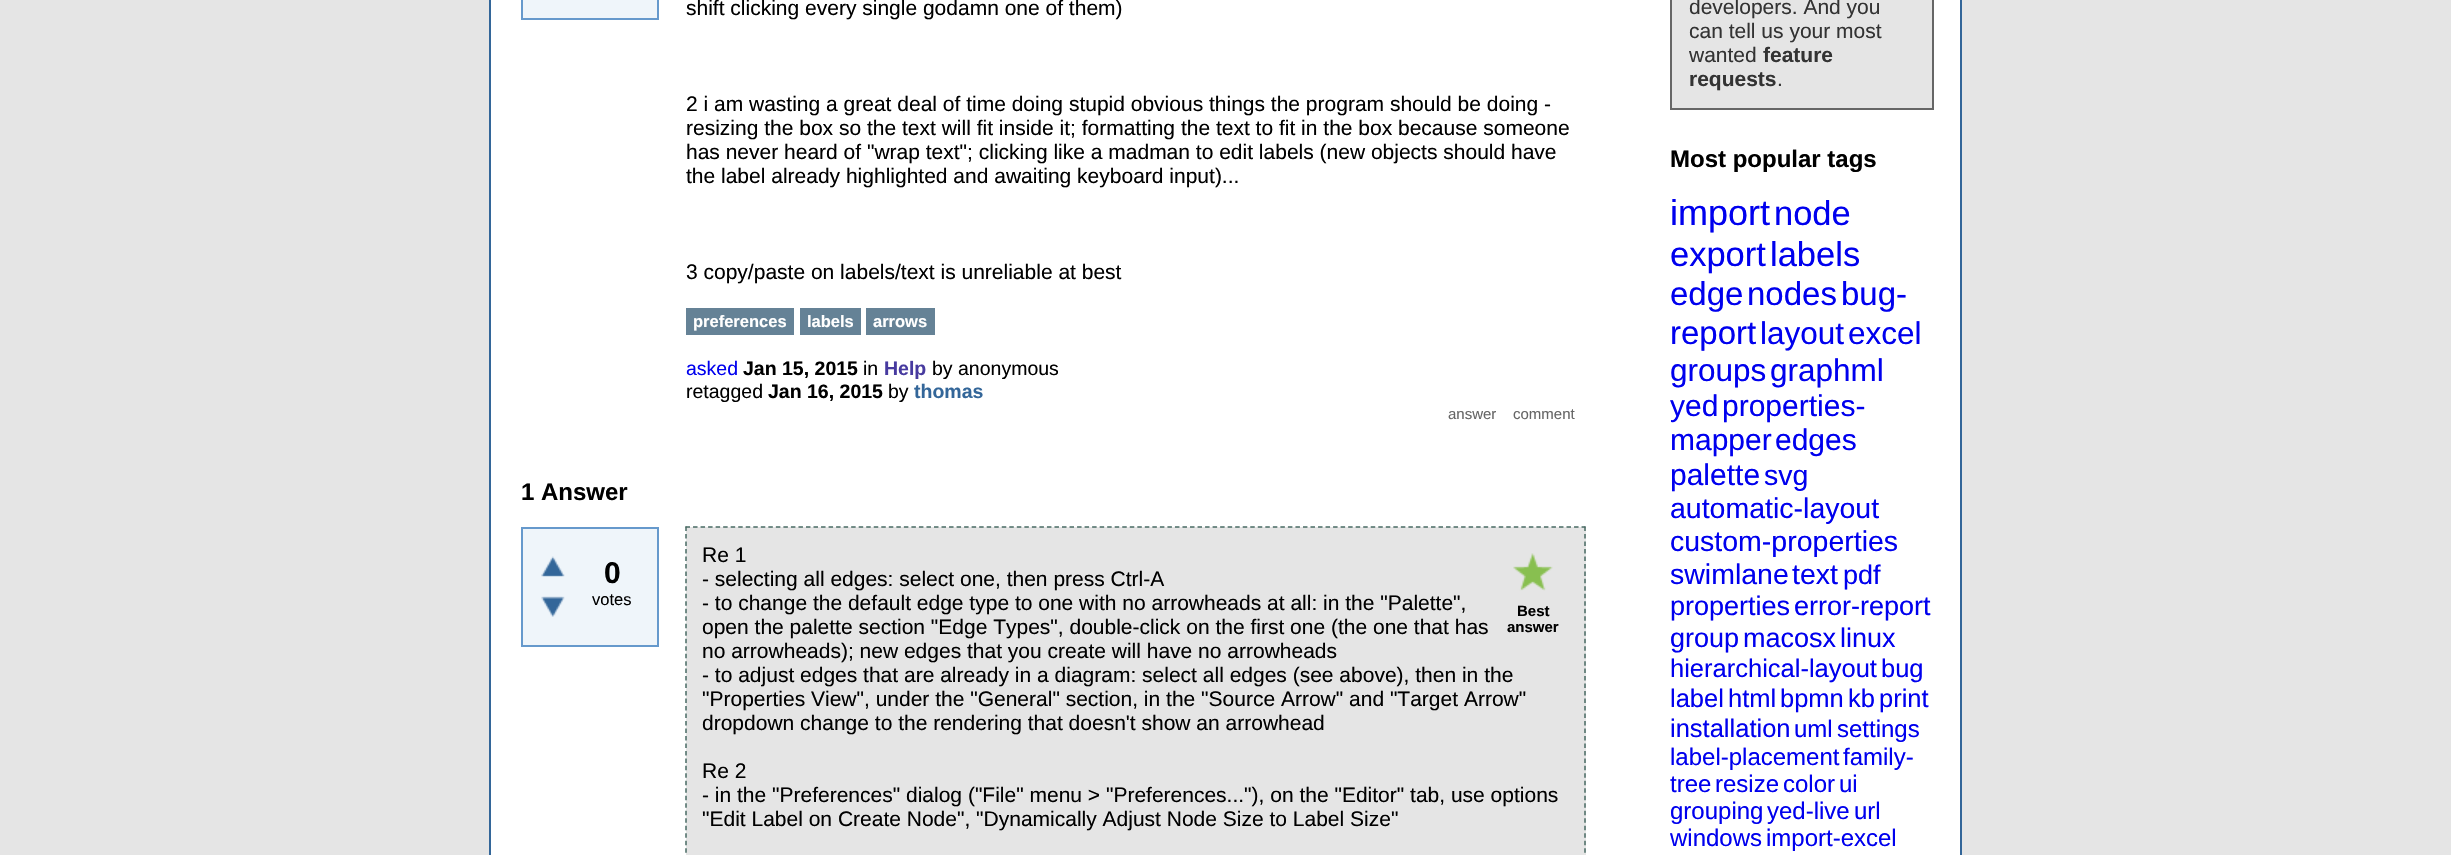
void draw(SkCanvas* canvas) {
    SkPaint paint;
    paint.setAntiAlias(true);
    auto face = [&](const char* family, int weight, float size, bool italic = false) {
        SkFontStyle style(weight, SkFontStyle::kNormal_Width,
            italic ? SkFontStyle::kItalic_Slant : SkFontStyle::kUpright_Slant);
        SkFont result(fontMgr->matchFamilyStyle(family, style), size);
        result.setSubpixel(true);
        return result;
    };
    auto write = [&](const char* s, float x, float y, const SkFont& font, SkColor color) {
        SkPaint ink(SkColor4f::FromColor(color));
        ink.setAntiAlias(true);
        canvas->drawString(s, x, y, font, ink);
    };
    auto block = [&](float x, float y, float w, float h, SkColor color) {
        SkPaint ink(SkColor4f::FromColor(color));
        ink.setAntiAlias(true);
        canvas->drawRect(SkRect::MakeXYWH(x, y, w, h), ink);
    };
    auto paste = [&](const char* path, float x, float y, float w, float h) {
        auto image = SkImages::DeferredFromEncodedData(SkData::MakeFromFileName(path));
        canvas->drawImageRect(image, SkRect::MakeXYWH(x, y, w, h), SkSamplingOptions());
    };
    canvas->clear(SkColorSetRGB(229, 229, 229));
    paint.setColor(SK_ColorWHITE);
    canvas->drawRect(SkRect::MakeXYWH(490, -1, 1471, 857), paint);
    paint.setStyle(SkPaint::kStroke_Style);
    paint.setStrokeWidth(2);
    paint.setColor(SkColorSetRGB(51, 102, 153));
    canvas->drawRect(SkRect::MakeXYWH(490, -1, 1471, 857), paint);
    paint.setStyle(SkPaint::kFill_Style);
    paint.setColor(SkColorSetRGB(239, 245, 250));
    canvas->drawRect(SkRect::MakeXYWH(522, -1, 136, 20), paint);
    paint.setStyle(SkPaint::kStroke_Style);
    paint.setColor(SkColorSetRGB(102, 153, 204));
    canvas->drawRect(SkRect::MakeXYWH(522, -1, 136, 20), paint);
    auto kFont1 = face("Liberation Sans", 400, 21);
    write("shift clicking every single godamn one of them)", 686, 15, kFont1, SK_ColorBLACK);
    write("2 i am wasting a great deal of time doing stupid obvious things the program should be doing -", 686, 111, kFont1, SK_ColorBLACK);
    write("resizing the box so the text will fit inside it; formatting the text to fit in the box because someone", 686, 135, kFont1, SK_ColorBLACK);
    write("has never heard of \"wrap text\"; clicking like a madman to edit labels (new objects should have", 686, 159, kFont1, SK_ColorBLACK);
    write("the label already highlighted and awaiting keyboard input)...", 686, 183, kFont1, SK_ColorBLACK);
    write("3 copy/paste on labels/text is unreliable at best", 686, 279, kFont1, SK_ColorBLACK);
    block(686, 308, 108, 27, SkColorSetRGB(101, 130, 150));
    auto kFont2 = face("Liberation Sans", 700, 16.5f);
    write("preferences", 693, 327, kFont2, SK_ColorWHITE);
    block(800, 308, 61, 27, SkColorSetRGB(101, 130, 150));
    write("labels", 807, 327, kFont2, SK_ColorWHITE);
    block(866, 308, 69, 27, SkColorSetRGB(101, 130, 150));
    write("arrows", 873, 327, kFont2, SK_ColorWHITE);
    auto kFont3 = face("Liberation Sans", 400, 19.5f);
    write("asked", 686, 375, kFont3, SkColorSetRGB(0, 0, 238));
    auto kFont4 = face("Liberation Sans", 700, 19.5f);
    write("Jan 15, 2015", 743, 375, kFont4, SK_ColorBLACK);
    write("in", 863, 375, kFont3, SK_ColorBLACK);
    write("Help", 884, 375, kFont4, SkColorSetRGB(71, 58, 159));
    write("by anonymous", 932, 375, kFont3, SK_ColorBLACK);
    write("retagged", 686, 398, kFont3, SK_ColorBLACK);
    write("Jan 16, 2015", 768, 398, kFont4, SK_ColorBLACK);
    write("by", 888, 398, kFont3, SK_ColorBLACK);
    write("thomas", 914, 398, kFont4, SkColorSetRGB(51, 102, 153));
    auto kFont5 = face("Liberation Sans", 400, 15);
    write("answer", 1448, 419, kFont5, SkColorSetRGB(102, 102, 102));
    write("comment", 1513, 419, kFont5, SkColorSetRGB(102, 102, 102));
    auto kFont6 = face("Liberation Sans", 700, 24);
    write("1 Answer", 521, 500, kFont6, SK_ColorBLACK);
    paint.setStyle(SkPaint::kFill_Style);
    paint.setColor(SkColorSetRGB(239, 245, 250));
    canvas->drawRect(SkRect::MakeXYWH(522, 528, 136, 118), paint);
    paint.setStyle(SkPaint::kStroke_Style);
    paint.setColor(SkColorSetRGB(102, 153, 204));
    canvas->drawRect(SkRect::MakeXYWH(522, 528, 136, 118), paint);
    paste("pic1.png", 541, 556, 24, 21);
    paste("pic2.png", 541, 596, 24, 21);
    auto kFont7 = face("Liberation Sans", 700, 30);
    write("0", 604, 583, kFont7, SK_ColorBLACK);
    auto kFont8 = face("Liberation Sans", 400, 16.5f);
    write("votes", 592, 605, kFont8, SK_ColorBLACK);
    block(686, 527, 900, 328, SkColorSetRGB(229, 229, 229));
    paint.setStrokeWidth(1.5f);
    paint.setColor(SkColorSetRGB(72, 106, 99));
    paint.setPathEffect(SkDashPathEffect::Make({{4.5f, 3.03f}}, 0));
    canvas->drawPath(SkPathBuilder().moveTo(685.5f, 527).lineTo(1585.5f, 527).detach(), paint);
    paint.setPathEffect(nullptr);
    paint.setPathEffect(SkDashPathEffect::Make({{4.5f, 2.98f}}, 0));
    canvas->drawPath(SkPathBuilder().moveTo(1585, 526.5f).lineTo(1585, 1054.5f).detach(), paint);
    paint.setPathEffect(nullptr);
    paint.setPathEffect(SkDashPathEffect::Make({{4.5f, 2.98f}}, 0));
    canvas->drawPath(SkPathBuilder().moveTo(686, 526.5f).lineTo(686, 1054.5f).detach(), paint);
    paint.setPathEffect(nullptr);
    write("Re 1", 702, 562, kFont1, SK_ColorBLACK);
    write("- selecting all edges: select one, then press Ctrl-A", 702, 586, kFont1, SK_ColorBLACK);
    write("- to change the default edge type to one with no arrowheads at all: in the \"Palette\",", 702, 610, kFont1, SK_ColorBLACK);
    write("open the palette section \"Edge Types\", double-click on the first one (the one that has", 702, 634, kFont1, SK_ColorBLACK);
    write("no arrowheads); new edges that you create will have no arrowheads", 702, 658, kFont1, SK_ColorBLACK);
    write("- to adjust edges that are already in a diagram: select all edges (see above), then in the", 702, 682, kFont1, SK_ColorBLACK);
    write("\"Properties View\", under the \"General\" section, in the \"Source Arrow\" and \"Target Arrow\"", 702, 706, kFont1, SK_ColorBLACK);
    write("dropdown change to the rendering that doesn't show an arrowhead", 702, 730, kFont1, SK_ColorBLACK);
    write("Re 2", 702, 778, kFont1, SK_ColorBLACK);
    write("- in the \"Preferences\" dialog (\"File\" menu > \"Preferences...\"), on the \"Editor\" tab, use options", 702, 802, kFont1, SK_ColorBLACK);
    write("\"Edit Label on Create Node\", \"Dynamically Adjust Node Size to Label Size\"", 702, 826, kFont1, SK_ColorBLACK);
    paste("pic3.png", 1513, 553, 40, 38);
    auto kFont9 = face("Liberation Sans", 700, 15);
    write("Best", 1517, 616, kFont9, SK_ColorBLACK);
    write("answer", 1507, 632, kFont9, SK_ColorBLACK);
    paint.setStyle(SkPaint::kFill_Style);
    paint.setColor(SkColorSetRGB(229, 229, 229));
    canvas->drawRect(SkRect::MakeXYWH(1671, -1, 262, 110), paint);
    paint.setStyle(SkPaint::kStroke_Style);
    paint.setStrokeWidth(2);
    paint.setColor(SkColorSetRGB(102, 102, 102));
    canvas->drawRect(SkRect::MakeXYWH(1671, -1, 262, 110), paint);
    write("developers. And you", 1689, 14, kFont1, SkColorSetRGB(51, 51, 51));
    write("can tell us your most", 1689, 38, kFont1, SkColorSetRGB(51, 51, 51));
    write("wanted", 1689, 62, kFont1, SkColorSetRGB(51, 51, 51));
    auto kFont10 = face("Liberation Sans", 700, 21);
    write("feature", 1763, 62, kFont10, SkColorSetRGB(51, 51, 51));
    write("requests", 1689, 86, kFont10, SkColorSetRGB(51, 51, 51));
    write(".", 1777, 86, kFont1, SkColorSetRGB(51, 51, 51));
    write("Most popular tags", 1670, 167, kFont6, SK_ColorBLACK);
    auto kFont11 = face("Liberation Sans", 400, 36);
    write("import", 1670, 225, kFont11, SkColorSetRGB(0, 0, 238));
    auto kFont12 = face("Liberation Sans", 400, 34.5f);
    write("node", 1774, 225, kFont12, SkColorSetRGB(0, 0, 238));
    write("export", 1670, 266, kFont12, SkColorSetRGB(0, 0, 238));
    write("labels", 1770, 266, kFont12, SkColorSetRGB(0, 0, 238));
    auto kFont13 = face("Liberation Sans", 400, 33);
    write("edge", 1670, 305, kFont13, SkColorSetRGB(0, 0, 238));
    write("nodes", 1747, 305, kFont13, SkColorSetRGB(0, 0, 238));
    write("bug-", 1841, 305, kFont13, SkColorSetRGB(0, 0, 238));
    write("report", 1670, 344, kFont13, SkColorSetRGB(0, 0, 238));
    auto kFont14 = face("Liberation Sans", 400, 31.5f);
    write("layout", 1760, 344, kFont14, SkColorSetRGB(0, 0, 238));
    write("excel", 1848, 344, kFont14, SkColorSetRGB(0, 0, 238));
    write("groups", 1670, 381, kFont14, SkColorSetRGB(0, 0, 238));
    write("graphml", 1770, 381, kFont14, SkColorSetRGB(0, 0, 238));
    auto kFont15 = face("Liberation Sans", 400, 30);
    write("yed", 1670, 416, kFont15, SkColorSetRGB(0, 0, 238));
    write("properties-", 1722, 416, kFont15, SkColorSetRGB(0, 0, 238));
    write("mapper", 1670, 450, kFont15, SkColorSetRGB(0, 0, 238));
    write("edges", 1775, 450, kFont15, SkColorSetRGB(0, 0, 238));
    write("palette", 1670, 485, kFont15, SkColorSetRGB(0, 0, 238));
    auto kFont16 = face("Liberation Sans", 400, 28.5f);
    write("svg", 1764, 485, kFont16, SkColorSetRGB(0, 0, 238));
    write("automatic-layout", 1670, 518, kFont16, SkColorSetRGB(0, 0, 238));
    write("custom-properties", 1670, 551, kFont16, SkColorSetRGB(0, 0, 238));
    write("swimlane", 1670, 584, kFont16, SkColorSetRGB(0, 0, 238));
    write("text", 1792, 584, kFont16, SkColorSetRGB(0, 0, 238));
    auto kFont17 = face("Liberation Sans", 400, 27);
    write("pdf", 1843, 584, kFont17, SkColorSetRGB(0, 0, 238));
    write("properties", 1670, 615, kFont17, SkColorSetRGB(0, 0, 238));
    write("error-report", 1794, 615, kFont17, SkColorSetRGB(0, 0, 238));
    write("group", 1670, 647, kFont17, SkColorSetRGB(0, 0, 238));
    write("macosx", 1743, 647, kFont17, SkColorSetRGB(0, 0, 238));
    write("linux", 1840, 647, kFont17, SkColorSetRGB(0, 0, 238));
    auto kFont18 = face("Liberation Sans", 400, 25.5f);
    write("hierarchical-layout", 1670, 677, kFont18, SkColorSetRGB(0, 0, 238));
    write("bug", 1881, 677, kFont18, SkColorSetRGB(0, 0, 238));
    write("label", 1670, 707, kFont18, SkColorSetRGB(0, 0, 238));
    write("html", 1728, 707, kFont18, SkColorSetRGB(0, 0, 238));
    write("bpmn", 1780, 707, kFont18, SkColorSetRGB(0, 0, 238));
    write("kb", 1848, 707, kFont18, SkColorSetRGB(0, 0, 238));
    write("print", 1879, 707, kFont18, SkColorSetRGB(0, 0, 238));
    write("installation", 1670, 737, kFont18, SkColorSetRGB(0, 0, 238));
    auto kFont19 = face("Liberation Sans", 400, 24);
    write("uml", 1794, 737, kFont19, SkColorSetRGB(0, 0, 238));
    write("settings", 1837, 737, kFont19, SkColorSetRGB(0, 0, 238));
    write("label-placement", 1670, 765, kFont19, SkColorSetRGB(0, 0, 238));
    write("family-", 1843, 765, kFont19, SkColorSetRGB(0, 0, 238));
    write("tree", 1670, 792, kFont19, SkColorSetRGB(0, 0, 238));
    write("resize", 1715, 792, kFont19, SkColorSetRGB(0, 0, 238));
    write("color", 1783, 792, kFont19, SkColorSetRGB(0, 0, 238));
    write("ui", 1839, 792, kFont19, SkColorSetRGB(0, 0, 238));
    write("grouping", 1670, 819, kFont19, SkColorSetRGB(0, 0, 238));
    write("yed-live", 1767, 819, kFont19, SkColorSetRGB(0, 0, 238));
    write("url", 1854, 819, kFont19, SkColorSetRGB(0, 0, 238));
    write("windows", 1670, 846, kFont19, SkColorSetRGB(0, 0, 238));
    write("import-excel", 1766, 846, kFont19, SkColorSetRGB(0, 0, 238));
}
